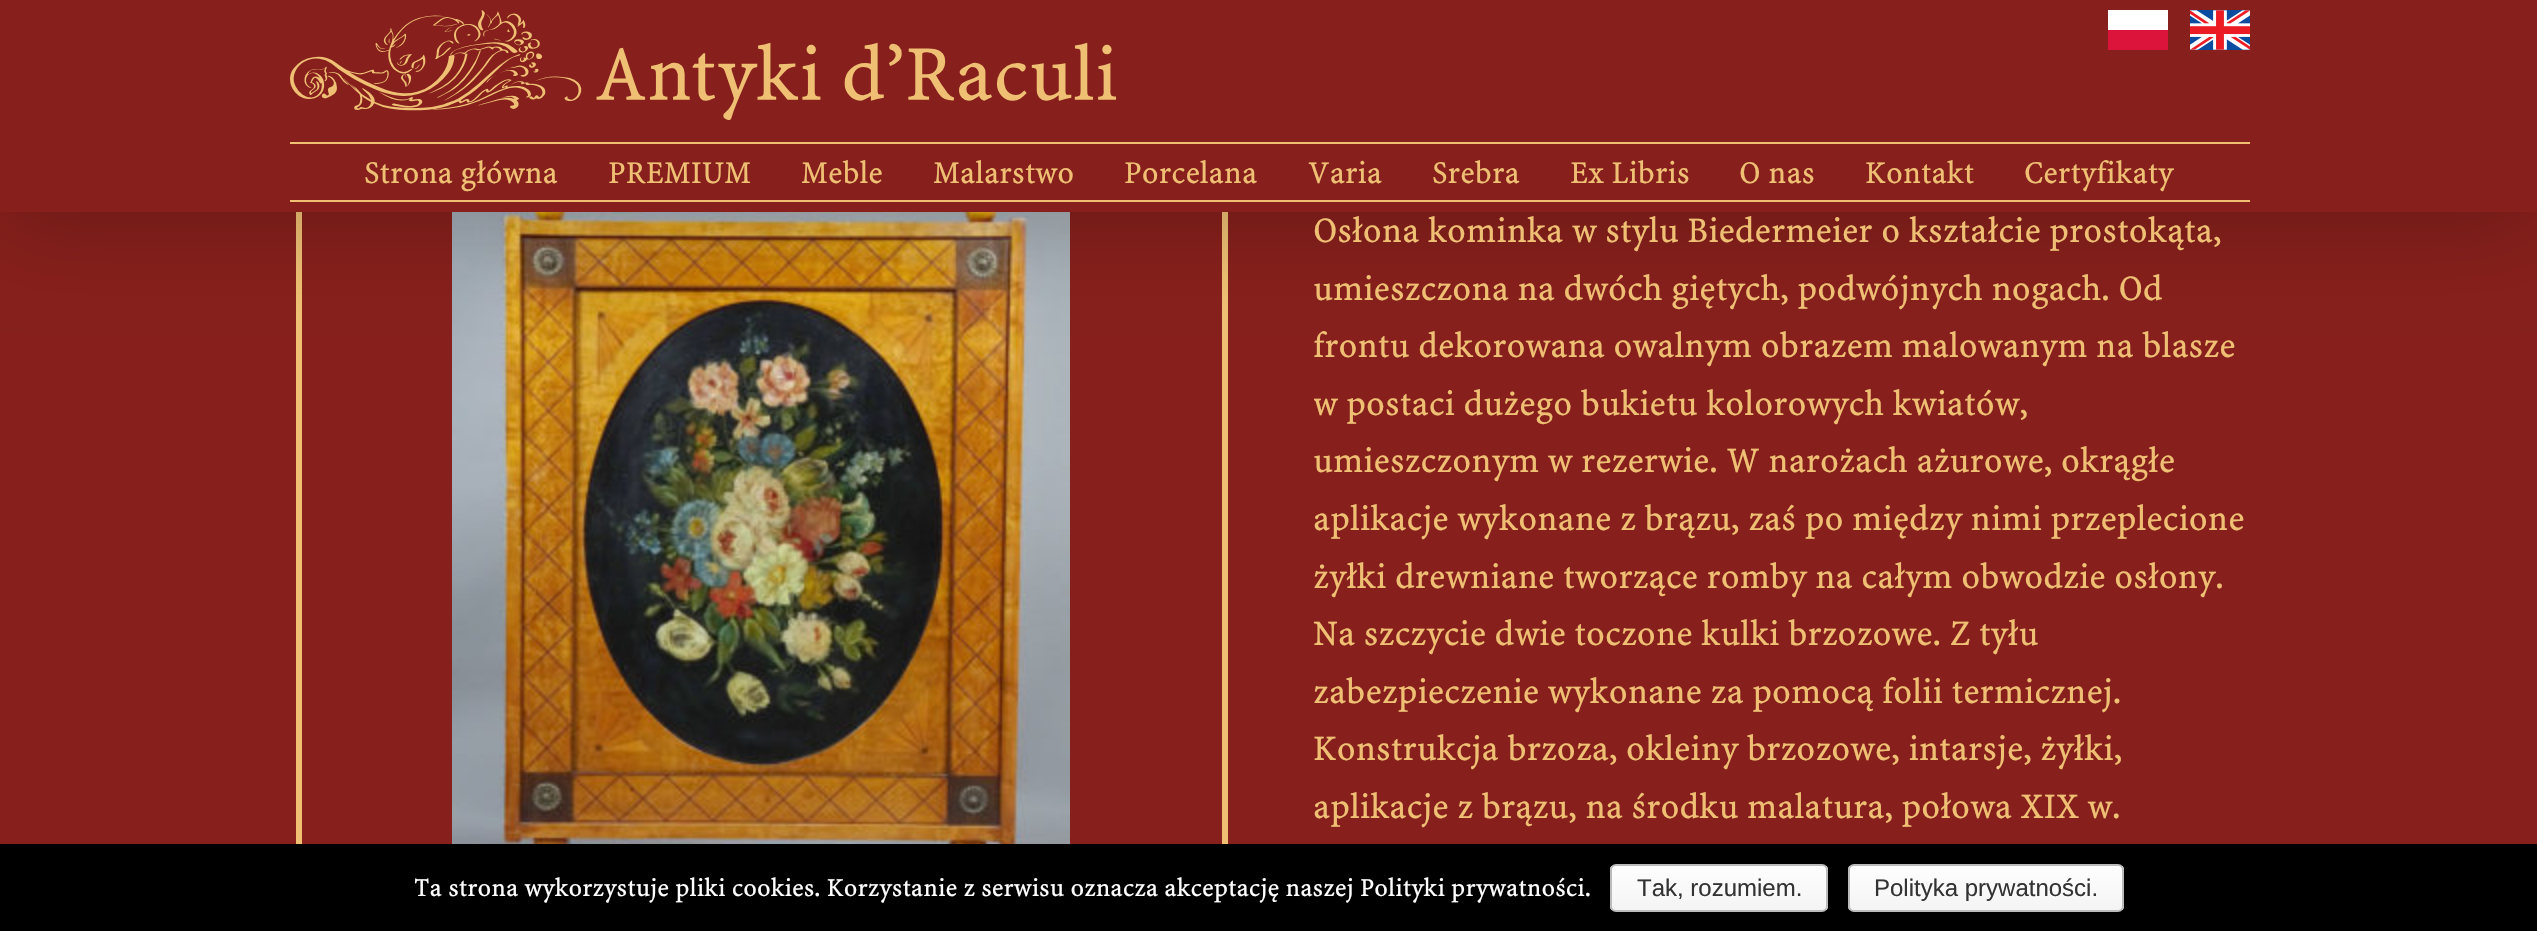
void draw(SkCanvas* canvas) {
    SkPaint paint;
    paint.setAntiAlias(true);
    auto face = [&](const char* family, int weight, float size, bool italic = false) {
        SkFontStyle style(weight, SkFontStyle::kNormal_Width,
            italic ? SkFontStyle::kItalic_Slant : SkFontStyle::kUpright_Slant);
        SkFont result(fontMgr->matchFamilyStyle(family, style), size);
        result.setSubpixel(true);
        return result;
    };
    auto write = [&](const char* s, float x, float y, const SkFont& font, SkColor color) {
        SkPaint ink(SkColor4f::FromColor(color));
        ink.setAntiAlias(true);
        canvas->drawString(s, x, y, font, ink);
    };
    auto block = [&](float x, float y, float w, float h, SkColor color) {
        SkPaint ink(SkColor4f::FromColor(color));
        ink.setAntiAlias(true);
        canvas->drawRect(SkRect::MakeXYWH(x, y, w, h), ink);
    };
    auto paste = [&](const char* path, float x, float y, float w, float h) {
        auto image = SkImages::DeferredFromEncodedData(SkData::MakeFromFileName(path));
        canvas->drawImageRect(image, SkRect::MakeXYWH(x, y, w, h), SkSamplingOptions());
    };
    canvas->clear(SkColorSetRGB(135, 32, 28));
    paint.setStyle(SkPaint::kStroke_Style);
    paint.setStrokeWidth(6);
    paint.setColor(SkColorSetRGB(239, 192, 116));
    canvas->drawRect(SkRect::MakeXYWH(299, 155, 926, 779), paint);
    paste("pic3.png", 452, 212, 618, 632);
    paint.setStyle(SkPaint::kFill_Style);
    paint.setColor(SkColorSetARGB(51, 0, 0, 0));
    paint.setMaskFilter(SkMaskFilter::MakeBlur(kNormal_SkBlurStyle, 45));
    canvas->drawRect(SkRect::MakeXYWH(0, 16, 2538, 212), paint);
    paint.setMaskFilter(nullptr);
    block(0, 0, 2537, 212, SkColorSetRGB(135, 32, 28));
    paste("pic1.png", 290, 10, 826, 110);
    block(2108, 10, 60, 20, SK_ColorWHITE);
    block(2108, 30, 60, 20, SkColorSetRGB(220, 20, 60));
    paste("pic2.png", 2190, 10, 60, 40);
    block(290, 142, 1960, 2, SkColorSetRGB(239, 192, 116));
    block(290, 200, 1960, 2, SkColorSetRGB(239, 192, 116));
    auto kFont1 = face("Minion", 400, 32);
    write("Strona główna", 364, 183, kFont1, SkColorSetRGB(239, 192, 116));
    write("PREMIUM", 608, 183, kFont1, SkColorSetRGB(239, 192, 116));
    write("Meble", 801, 183, kFont1, SkColorSetRGB(239, 192, 116));
    write("Malarstwo", 933, 183, kFont1, SkColorSetRGB(239, 192, 116));
    write("Porcelana", 1124, 183, kFont1, SkColorSetRGB(239, 192, 116));
    write("Varia", 1308, 183, kFont1, SkColorSetRGB(239, 192, 116));
    write("Srebra", 1432, 183, kFont1, SkColorSetRGB(239, 192, 116));
    write("Ex Libris", 1570, 183, kFont1, SkColorSetRGB(239, 192, 116));
    write("O nas", 1739, 183, kFont1, SkColorSetRGB(239, 192, 116));
    write("Kontakt", 1865, 183, kFont1, SkColorSetRGB(239, 192, 116));
    write("Certyfikaty", 2024, 183, kFont1, SkColorSetRGB(239, 192, 116));
    auto kFont2 = face("Minion", 400, 36);
    write("Osłona kominka w stylu Biedermeier o kształcie prostokąta,", 1313, 242, kFont2, SkColorSetRGB(239, 192, 116));
    write("umieszczona na dwóch giętych, podwójnych nogach. Od", 1313, 300, kFont2, SkColorSetRGB(239, 192, 116));
    write("frontu dekorowana owalnym obrazem malowanym na blasze", 1313, 357, kFont2, SkColorSetRGB(239, 192, 116));
    canvas->save();
    canvas->clipRect(SkRect::MakeXYWH(1314, 146, 936, 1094));
    write("w postaci dużego bukietu kolorowych kwiatów,", 1313, 415, kFont2, SkColorSetRGB(239, 192, 116));
    canvas->restore();
    write("umieszczonym w rezerwie. W narożach ażurowe, okrągłe", 1313, 472, kFont2, SkColorSetRGB(239, 192, 116));
    write("aplikacje wykonane z brązu, zaś po między nimi przeplecione", 1313, 530, kFont2, SkColorSetRGB(239, 192, 116));
    write("żyłki drewniane tworzące romby na całym obwodzie osłony.", 1313, 588, kFont2, SkColorSetRGB(239, 192, 116));
    write("Na szczycie dwie toczone kulki brzozowe. Z tyłu", 1313, 645, kFont2, SkColorSetRGB(239, 192, 116));
    write("zabezpieczenie wykonane za pomocą folii termicznej.", 1313, 703, kFont2, SkColorSetRGB(239, 192, 116));
    write("Konstrukcja brzoza, okleiny brzozowe, intarsje, żyłki,", 1313, 760, kFont2, SkColorSetRGB(239, 192, 116));
    write("aplikacje z brązu, na środku malatura, połowa XIX w.", 1313, 818, kFont2, SkColorSetRGB(239, 192, 116));
    block(0, 844, 2537, 87, SK_ColorBLACK);
    auto kFont3 = face("Minion", 400, 26);
    write("Ta strona wykorzystuje pliki cookies. Korzystanie z serwisu oznacza akceptację naszej Polityki prywatności.", 414, 896, kFont3, SK_ColorWHITE);
    canvas->save();
    canvas->clipPath(SkPathBuilder().moveTo(1616, 864).lineTo(1822, 864).cubicTo(1825.5f, 864, 1828, 866.5f, 1828, 870).lineTo(1828, 906).cubicTo(1828, 909.5f, 1825.5f, 912, 1822, 912).lineTo(1616, 912).cubicTo(1612.5f, 912, 1610, 909.5f, 1610, 906).lineTo(1610, 870).cubicTo(1610, 866.5f, 1612.5f, 864, 1616, 864).close().detach(), true);
    {
        const SkColor colors[] = {SkColorSetRGB(254, 254, 254), SkColorSetRGB(244, 244, 244)};
        const float stops[] = {0, 1};
        const SkPoint ends[] = {{1719, 866}, {1719, 910}};
        paint.setShader(SkGradientShader::MakeLinear(ends, colors, stops, 2, SkTileMode::kClamp));
        paint.setAlpha(255);
    }
    canvas->drawRect(SkRect::MakeXYWH(1610, 866, 218, 44), paint);
    canvas->restore();
    paint.setStyle(SkPaint::kStroke_Style);
    paint.setStrokeWidth(2);
    paint.setShader(nullptr);
    paint.setColor(SkColorSetRGB(187, 187, 187));
    canvas->drawRoundRect(SkRect::MakeXYWH(1611, 865, 216, 46), 5, 5, paint);
    auto kFont4 = face("Liberation Sans", 400, 24);
    write("Tak, rozumiem.", 1637, 896, kFont4, SkColorSetRGB(51, 51, 51));
    canvas->save();
    canvas->clipPath(SkPathBuilder().moveTo(1854, 864).lineTo(2118, 864).cubicTo(2121.5f, 864, 2124, 866.5f, 2124, 870).lineTo(2124, 906).cubicTo(2124, 909.5f, 2121.5f, 912, 2118, 912).lineTo(1854, 912).cubicTo(1850.5f, 912, 1848, 909.5f, 1848, 906).lineTo(1848, 870).cubicTo(1848, 866.5f, 1850.5f, 864, 1854, 864).close().detach(), true);
    paint.setStyle(SkPaint::kFill_Style);
    {
        const SkColor colors[] = {SkColorSetRGB(254, 254, 254), SkColorSetRGB(244, 244, 244)};
        const float stops[] = {0, 1};
        const SkPoint ends[] = {{1986, 866}, {1986, 910}};
        paint.setShader(SkGradientShader::MakeLinear(ends, colors, stops, 2, SkTileMode::kClamp));
        paint.setAlpha(255);
    }
    canvas->drawRect(SkRect::MakeXYWH(1848, 866, 276, 44), paint);
    canvas->restore();
    paint.setStyle(SkPaint::kStroke_Style);
    paint.setShader(nullptr);
    paint.setColor(SkColorSetRGB(187, 187, 187));
    canvas->drawRoundRect(SkRect::MakeXYWH(1849, 865, 274, 46), 5, 5, paint);
    write("Polityka prywatności.", 1874, 896, kFont4, SkColorSetRGB(51, 51, 51));
}
